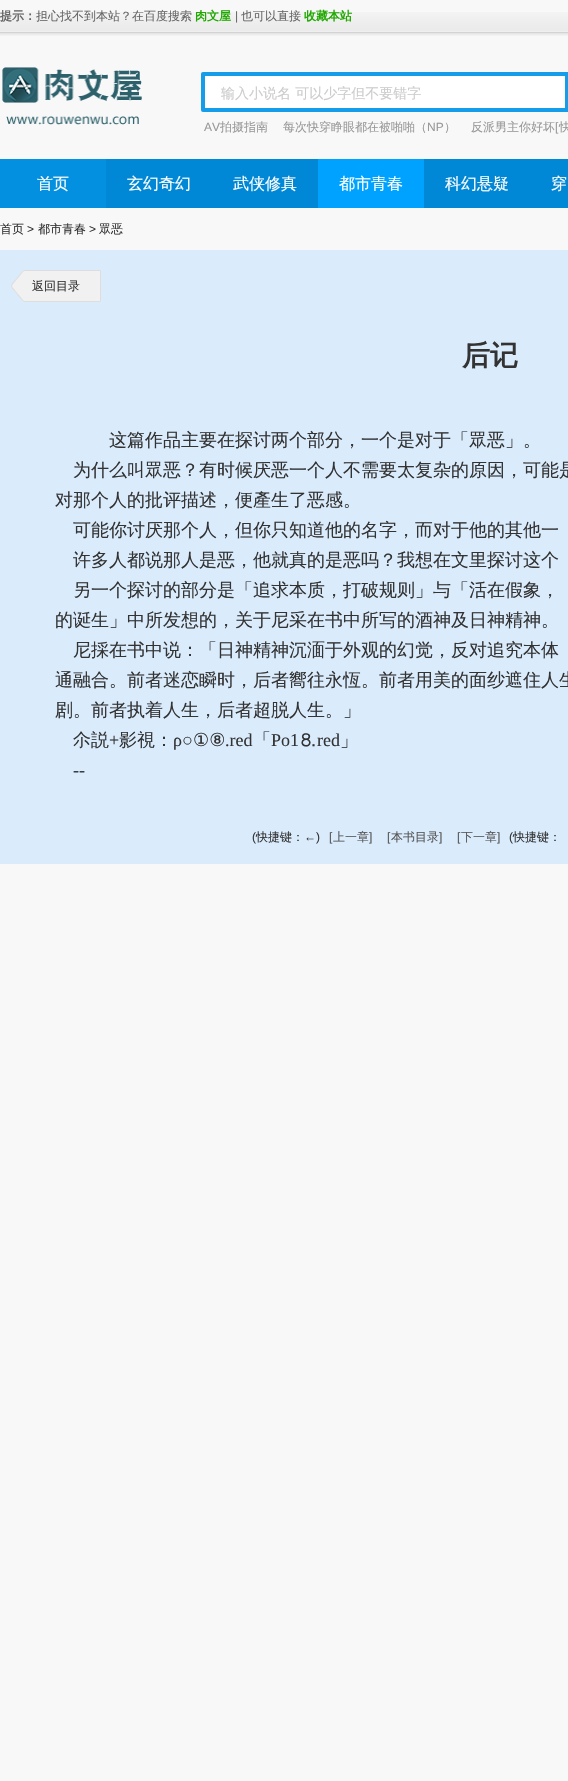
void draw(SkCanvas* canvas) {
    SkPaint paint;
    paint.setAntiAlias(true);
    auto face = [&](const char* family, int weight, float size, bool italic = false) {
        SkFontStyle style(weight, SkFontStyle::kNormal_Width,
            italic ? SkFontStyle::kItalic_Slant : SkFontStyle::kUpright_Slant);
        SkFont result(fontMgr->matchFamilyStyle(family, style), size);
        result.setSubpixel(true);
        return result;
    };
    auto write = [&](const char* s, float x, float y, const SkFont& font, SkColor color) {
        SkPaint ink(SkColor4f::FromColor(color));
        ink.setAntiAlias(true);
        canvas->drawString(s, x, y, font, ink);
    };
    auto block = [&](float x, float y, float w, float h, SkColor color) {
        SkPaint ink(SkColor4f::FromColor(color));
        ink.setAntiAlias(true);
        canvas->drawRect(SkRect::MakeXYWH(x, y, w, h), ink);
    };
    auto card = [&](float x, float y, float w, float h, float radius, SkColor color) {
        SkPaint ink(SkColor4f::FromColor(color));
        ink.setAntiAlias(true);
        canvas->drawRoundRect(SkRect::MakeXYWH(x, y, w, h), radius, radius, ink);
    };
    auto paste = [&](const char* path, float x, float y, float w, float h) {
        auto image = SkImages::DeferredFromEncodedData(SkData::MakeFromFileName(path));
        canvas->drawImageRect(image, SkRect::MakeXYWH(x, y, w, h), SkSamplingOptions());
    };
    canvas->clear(SkColorSetRGB(248, 248, 248));
    paste("pic1.png", 0, 12, 568, 24);
    auto kFont1 = face("WenQuanYi Zen Hei", 700, 12);
    write("提示：", 0, 20, kFont1, SkColorSetRGB(102, 102, 102));
    auto kFont2 = face("WenQuanYi Zen Hei", 500, 12);
    write("担心找不到本站？在百度搜索", 36, 20, kFont2, SkColorSetRGB(102, 102, 102));
    write("肉文屋", 195, 20, kFont1, SkColorSetRGB(31, 168, 0));
    auto kFont3 = face("Liberation Sans", 400, 12);
    write("|", 235, 20, kFont3, SkColorSetRGB(102, 102, 102));
    write("也可以直接", 241, 20, kFont2, SkColorSetRGB(102, 102, 102));
    write("收藏本站", 304, 20, kFont1, SkColorSetRGB(31, 168, 0));
    paste("pic2.png", 2, 67, 140, 58);
    card(201, 72, 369, 40, 2, SkColorSetRGB(22, 157, 234));
    block(205, 76, 360, 32, SK_ColorWHITE);
    auto kFont4 = face("WenQuanYi Zen Hei", 500, 14);
    write("输入小说名 可以少字但不要错字", 221, 98, kFont4, SkColorSetRGB(204, 204, 204));
    write("AV", 204, 131, kFont3, SkColorSetRGB(153, 153, 153));
    write("拍摄指南", 220, 131, kFont2, SkColorSetRGB(153, 153, 153));
    write("每次快穿睁眼都在被啪啪（", 283, 131, kFont2, SkColorSetRGB(153, 153, 153));
    write("NP", 427, 131, kFont3, SkColorSetRGB(153, 153, 153));
    write("）", 444, 131, kFont2, SkColorSetRGB(153, 153, 153));
    write("反派男主你好坏", 471, 131, kFont2, SkColorSetRGB(153, 153, 153));
    write("[", 555, 131, kFont3, SkColorSetRGB(153, 153, 153));
    write("快", 559, 131, kFont2, SkColorSetRGB(153, 153, 153));
    block(106, 159, 462, 49, SkColorSetRGB(0, 135, 213));
    block(0, 159, 106, 49, SkColorSetRGB(4, 144, 224));
    auto kFont5 = face("WenQuanYi Zen Hei", 500, 16);
    write("首页", 37, 189, kFont5, SK_ColorWHITE);
    write("玄幻奇幻", 127, 189, kFont5, SK_ColorWHITE);
    write("武侠修真", 233, 189, kFont5, SK_ColorWHITE);
    block(318, 159, 106, 49, SkColorSetRGB(0, 162, 255));
    write("都市青春", 339, 189, kFont5, SK_ColorWHITE);
    write("科幻悬疑", 445, 189, kFont5, SK_ColorWHITE);
    write("穿", 551, 189, kFont5, SK_ColorWHITE);
    write("首页", 0, 233, kFont2, SkColorSetRGB(51, 51, 51));
    write(">", 27, 233, kFont3, SkColorSetRGB(51, 51, 51));
    write("都市青春", 38, 233, kFont2, SkColorSetRGB(51, 51, 51));
    write(">", 89, 233, kFont3, SkColorSetRGB(51, 51, 51));
    write("眾恶", 99, 233, kFont2, SkColorSetRGB(51, 51, 51));
    block(0, 250, 568, 614, SkColorSetRGB(218, 235, 252));
    paste("pic3.png", 11, 270, 90, 32);
    write("返回目录", 32, 290, kFont2, SkColorSetRGB(51, 51, 51));
    auto kFont6 = face("WenQuanYi Zen Hei", 700, 28);
    write("后记", 462, 365, kFont6, SkColorSetRGB(51, 51, 51));
    auto kFont7 = face("WenQuanYi Zen Hei", 500, 18);
    write("这篇作品主要在探讨两个部分，一个是对于「眾恶」。", 109, 446, kFont7, SkColorSetRGB(51, 51, 51));
    write("为什么叫眾恶？有时候厌恶一个人不需要太复杂的原因，可能是", 73, 476, kFont7, SkColorSetRGB(51, 51, 51));
    write("对那个人的批评描述，便產生了恶感。", 55, 506, kFont7, SkColorSetRGB(51, 51, 51));
    write("可能你讨厌那个人，但你只知道他的名字，而对于他的其他一", 73, 536, kFont7, SkColorSetRGB(51, 51, 51));
    write("许多人都说那人是恶，他就真的是恶吗？我想在文里探讨这个", 73, 566, kFont7, SkColorSetRGB(51, 51, 51));
    write("另一个探讨的部分是「追求本质，打破规则」与「活在假象，", 73, 596, kFont7, SkColorSetRGB(51, 51, 51));
    write("的诞生」中所发想的，关于尼采在书中所写的酒神及日神精神。", 55, 626, kFont7, SkColorSetRGB(51, 51, 51));
    write("尼採在书中说：「日神精神沉湎于外观的幻觉，反对追究本体", 73, 656, kFont7, SkColorSetRGB(51, 51, 51));
    write("通融合。前者迷恋瞬时，后者嚮往永恆。前者用美的面纱遮住人生", 55, 686, kFont7, SkColorSetRGB(51, 51, 51));
    write("剧。前者执着人生，后者超脱人生。」", 55, 716, kFont7, SkColorSetRGB(51, 51, 51));
    write("尒説", 73, 746, kFont7, SkColorSetRGB(51, 51, 51));
    auto kFont8 = face("Liberation Serif", 400, 18);
    write("+", 109, 746, kFont8, SkColorSetRGB(51, 51, 51));
    write("影視：", 119, 746, kFont7, SkColorSetRGB(51, 51, 51));
    write("ρ○", 173, 746, kFont8, SkColorSetRGB(51, 51, 51));
    auto kFont9 = face("DejaVu Sans", 400, 18);
    write("①⑧", 193, 746, kFont9, SkColorSetRGB(51, 51, 51));
    write(".red", 225, 746, kFont8, SkColorSetRGB(51, 51, 51));
    write("「", 253, 746, kFont7, SkColorSetRGB(51, 51, 51));
    write("Рo1", 271, 746, kFont8, SkColorSetRGB(51, 51, 51));
    write("⒏", 299, 746, kFont7, SkColorSetRGB(51, 51, 51));
    write("red", 317, 746, kFont8, SkColorSetRGB(51, 51, 51));
    write("」", 340, 746, kFont7, SkColorSetRGB(51, 51, 51));
    write("--", 73, 776, kFont8, SkColorSetRGB(51, 51, 51));
    write("(", 252, 841, kFont3, SkColorSetRGB(51, 51, 51));
    write("快捷键：", 256, 841, kFont2, SkColorSetRGB(51, 51, 51));
    write("←)", 304, 841, kFont3, SkColorSetRGB(51, 51, 51));
    write("[", 329, 841, kFont3, SkColorSetRGB(85, 85, 85));
    write("上一章", 333, 841, kFont2, SkColorSetRGB(85, 85, 85));
    write("]", 369, 841, kFont3, SkColorSetRGB(85, 85, 85));
    write("[", 387, 841, kFont3, SkColorSetRGB(85, 85, 85));
    write("本书目录", 391, 841, kFont2, SkColorSetRGB(85, 85, 85));
    write("]", 439, 841, kFont3, SkColorSetRGB(85, 85, 85));
    write("[", 457, 841, kFont3, SkColorSetRGB(85, 85, 85));
    write("下一章", 461, 841, kFont2, SkColorSetRGB(85, 85, 85));
    write("]", 497, 841, kFont3, SkColorSetRGB(85, 85, 85));
    write("(", 509, 841, kFont3, SkColorSetRGB(51, 51, 51));
    write("快捷键：", 513, 841, kFont2, SkColorSetRGB(51, 51, 51));
}
